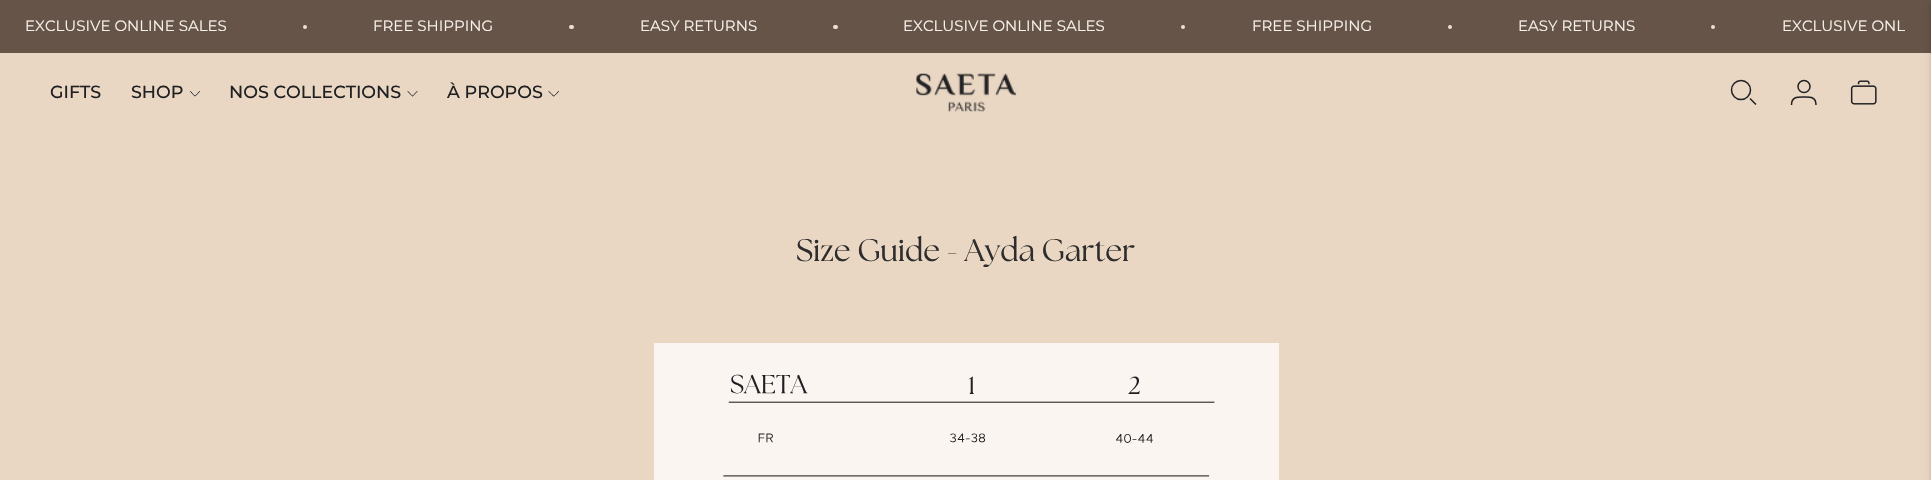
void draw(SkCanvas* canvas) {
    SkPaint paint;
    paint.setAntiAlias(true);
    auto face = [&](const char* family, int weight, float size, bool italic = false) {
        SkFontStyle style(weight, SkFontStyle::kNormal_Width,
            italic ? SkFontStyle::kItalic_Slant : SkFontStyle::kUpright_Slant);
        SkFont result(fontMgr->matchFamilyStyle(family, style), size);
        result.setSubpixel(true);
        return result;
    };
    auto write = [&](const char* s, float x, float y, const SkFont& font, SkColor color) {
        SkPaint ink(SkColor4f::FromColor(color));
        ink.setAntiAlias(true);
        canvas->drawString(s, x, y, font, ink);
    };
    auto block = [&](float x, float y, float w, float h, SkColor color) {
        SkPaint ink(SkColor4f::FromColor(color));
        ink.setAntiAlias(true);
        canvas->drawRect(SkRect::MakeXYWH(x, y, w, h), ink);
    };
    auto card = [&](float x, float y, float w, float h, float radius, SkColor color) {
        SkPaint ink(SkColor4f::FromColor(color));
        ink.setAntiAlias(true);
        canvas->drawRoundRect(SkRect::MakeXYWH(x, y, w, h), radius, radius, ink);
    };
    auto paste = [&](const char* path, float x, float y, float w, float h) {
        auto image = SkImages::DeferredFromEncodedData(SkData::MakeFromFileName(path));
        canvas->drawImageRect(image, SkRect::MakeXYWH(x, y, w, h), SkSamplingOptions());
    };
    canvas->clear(SkColorSetRGB(233, 215, 195));
    block(0, 0, 1931, 53, SkColorSetRGB(101, 84, 71));
    auto kFont1 = face("Montserrat", 400, 15);
    write("EXCLUSIVE ONLINE SALES", 25, 31, kFont1, SkColorSetRGB(248, 242, 236));
    paint.setColor(SkColorSetRGB(238, 223, 207));
    canvas->drawCircle(305, 27, 2, paint);
    write("FREE SHIPPING", 373, 31, kFont1, SkColorSetRGB(248, 242, 236));
    card(569, 25, 5, 4, 2, SkColorSetRGB(238, 223, 207));
    write("EASY RETURNS", 640, 31, kFont1, SkColorSetRGB(248, 242, 236));
    card(833, 25, 5, 4, 2, SkColorSetRGB(238, 223, 207));
    write("EXCLUSIVE ONLINE SALES", 903, 31, kFont1, SkColorSetRGB(248, 242, 236));
    canvas->drawCircle(1183, 27, 2, paint);
    write("FREE SHIPPING", 1252, 31, kFont1, SkColorSetRGB(248, 242, 236));
    canvas->drawCircle(1450, 27, 2, paint);
    write("EASY RETURNS", 1518, 31, kFont1, SkColorSetRGB(248, 242, 236));
    canvas->drawCircle(1713, 27, 2, paint);
    write("EXCLUSIVE ONL", 1782, 31, kFont1, SkColorSetRGB(248, 242, 236));
    auto kFont2 = face("Montserrat", 500, 17.5f);
    write("GIFTS", 50, 98, kFont2, SkColorSetRGB(32, 32, 34));
    write("SHOP", 131, 98, kFont2, SkColorSetRGB(32, 32, 34));
    paint.setStyle(SkPaint::kStroke_Style);
    paint.setStrokeWidth(1);
    paint.setStrokeCap(SkPaint::kRound_Cap);
    paint.setStrokeJoin(SkPaint::kRound_Join);
    paint.setColor(SkColorSetRGB(32, 32, 34));
    canvas->drawPath(SkPathBuilder().moveTo(190.5f, 91.5f).cubicTo(196.5f, 97.5f, 193.5f, 97.5f, 199.5f, 91.5f).detach(), paint);
    write("NOS COLLECTIONS", 229, 98, kFont2, SkColorSetRGB(32, 32, 34));
    canvas->drawPath(SkPathBuilder().moveTo(408, 91.5f).cubicTo(414, 97.5f, 411, 97.5f, 417, 91.5f).detach(), paint);
    write("À PROPOS", 447, 98, kFont2, SkColorSetRGB(32, 32, 34));
    canvas->drawPath(SkPathBuilder().moveTo(549, 91.5f).cubicTo(555, 97.5f, 552.5f, 97.5f, 558.5f, 91.5f).detach(), paint);
    paste("pic1.png", 916, 73, 101, 39);
    paint.setStrokeWidth(1.5f);
    paint.setStrokeCap(SkPaint::kButt_Cap);
    paint.setStrokeJoin(SkPaint::kMiter_Join);
    canvas->drawCircle(1741, 90, 9.5f, paint);
    canvas->drawPath(SkPathBuilder().moveTo(1750, 98.5f).lineTo(1756, 104.5f).detach(), paint);
    canvas->drawCircle(1804, 86.5f, 6, paint);
    canvas->drawPath(SkPathBuilder().moveTo(1791.5f, 105).cubicTo(1791.5f, 96.5f, 1797.5f, 97, 1804, 97).cubicTo(1810, 97, 1816, 96.5f, 1816, 105).detach(), paint);
    paste("pic2.png", 1850, 80, 27, 25);
    paint.setStyle(SkPaint::kFill_Style);
    paint.setColor(SkColorSetARGB(26, 0, 0, 0));
    paint.setMaskFilter(SkMaskFilter::MakeBlur(kNormal_SkBlurStyle, 4));
    canvas->drawRect(SkRect::MakeXYWH(1931, 5, 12, 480), paint);
    paint.setMaskFilter(nullptr);
    paint.setColor(SkColorSetARGB(38, 0, 0, 0));
    paint.setMaskFilter(SkMaskFilter::MakeBlur(kNormal_SkBlurStyle, 1));
    canvas->drawRect(SkRect::MakeXYWH(1931, 3, 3, 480), paint);
    paint.setMaskFilter(nullptr);
    auto kFont3 = face("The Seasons", 400, 31.25f);
    write("Size Guide - Ayda Garter", 796, 261, kFont3, SkColorSetRGB(46, 44, 44));
    paste("pic3.png", 654, 343, 625, 137);
}
